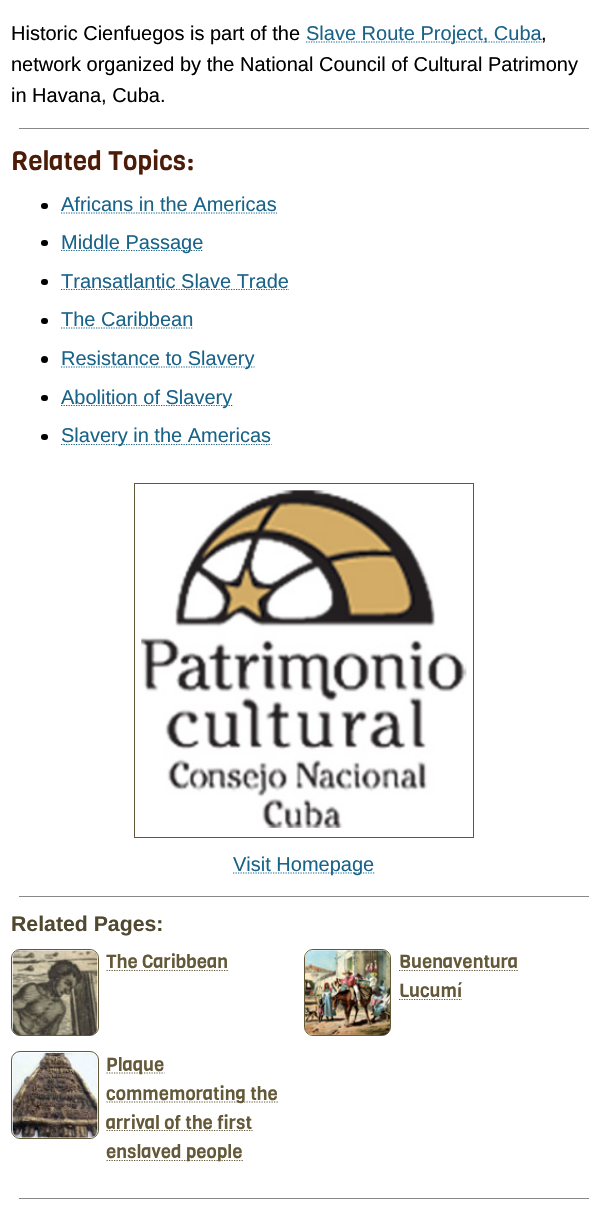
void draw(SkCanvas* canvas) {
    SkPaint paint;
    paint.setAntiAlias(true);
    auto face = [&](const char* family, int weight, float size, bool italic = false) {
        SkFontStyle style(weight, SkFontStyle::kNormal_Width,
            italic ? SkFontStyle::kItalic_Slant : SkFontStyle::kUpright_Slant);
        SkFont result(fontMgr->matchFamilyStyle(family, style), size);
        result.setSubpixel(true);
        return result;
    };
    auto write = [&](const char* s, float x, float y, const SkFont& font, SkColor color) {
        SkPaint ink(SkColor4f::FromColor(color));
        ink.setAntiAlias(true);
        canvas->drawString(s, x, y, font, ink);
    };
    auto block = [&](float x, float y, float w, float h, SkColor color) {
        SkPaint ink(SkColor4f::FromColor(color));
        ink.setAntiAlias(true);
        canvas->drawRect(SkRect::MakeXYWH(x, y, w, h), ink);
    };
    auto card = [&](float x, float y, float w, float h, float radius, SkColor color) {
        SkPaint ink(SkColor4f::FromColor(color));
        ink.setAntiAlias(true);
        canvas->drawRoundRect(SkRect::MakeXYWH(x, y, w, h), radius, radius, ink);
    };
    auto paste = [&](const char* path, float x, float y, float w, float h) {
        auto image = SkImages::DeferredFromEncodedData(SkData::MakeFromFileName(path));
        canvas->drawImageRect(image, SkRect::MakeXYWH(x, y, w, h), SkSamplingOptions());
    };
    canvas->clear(SK_ColorWHITE);
    auto kFont1 = face("Liberation Sans", 400, 20);
    write("Historic Cienfuegos is part of the", 11, 40, kFont1, SK_ColorBLACK);
    paint.setStyle(SkPaint::kStroke_Style);
    paint.setStrokeWidth(1.2f);
    paint.setColor(SkColorSetRGB(25, 99, 137));
    paint.setPathEffect(SkDashPathEffect::Make({{1.25f, 1.25f}}, 0));
    canvas->drawPath(SkPathBuilder().moveTo(306, 42).lineTo(541.5f, 42).detach(), paint);
    paint.setPathEffect(nullptr);
    write("Slave Route Project, Cuba", 306, 40, kFont1, SkColorSetRGB(25, 99, 137));
    write(",", 541, 40, kFont1, SK_ColorBLACK);
    write("network organized by the National Council of Cultural Patrimony", 11, 71, kFont1, SK_ColorBLACK);
    write("in Havana, Cuba.", 11, 102, kFont1, SK_ColorBLACK);
    block(19, 128, 570, 1, SkColorSetRGB(136, 136, 136));
    auto kFont2 = face("Viga", 400, 26.25f);
    write("Related Topics:", 11, 170, kFont2, SkColorSetRGB(76, 28, 9));
    card(41, 203, 7, 6, 3, SK_ColorBLACK);
    write("Africans in the Americas", 61, 211, kFont1, SkColorSetRGB(25, 99, 137));
    paint.setPathEffect(SkDashPathEffect::Make({{1.25f, 1.25f}}, 0));
    canvas->drawPath(SkPathBuilder().moveTo(61, 213).lineTo(277, 213).detach(), paint);
    paint.setPathEffect(nullptr);
    card(41, 240, 7, 6, 3, SK_ColorBLACK);
    paint.setPathEffect(SkDashPathEffect::Make({{1.25f, 1.25f}}, 0));
    canvas->drawPath(SkPathBuilder().moveTo(61, 250.5f).lineTo(203.5f, 250.5f).detach(), paint);
    paint.setPathEffect(nullptr);
    write("Middle Passage", 61, 249, kFont1, SkColorSetRGB(25, 99, 137));
    card(41, 279, 7, 6, 3, SK_ColorBLACK);
    paint.setPathEffect(SkDashPathEffect::Make({{1.25f, 1.25f}}, 0));
    canvas->drawPath(SkPathBuilder().moveTo(61, 289.5f).lineTo(289, 289.5f).detach(), paint);
    paint.setPathEffect(nullptr);
    write("Transatlantic Slave Trade", 61, 288, kFont1, SkColorSetRGB(25, 99, 137));
    card(41, 318, 7, 6, 3, SK_ColorBLACK);
    write("The Caribbean", 61, 326, kFont1, SkColorSetRGB(25, 99, 137));
    paint.setPathEffect(SkDashPathEffect::Make({{1.25f, 1.25f}}, 0));
    canvas->drawPath(SkPathBuilder().moveTo(61, 328).lineTo(193.5f, 328).detach(), paint);
    paint.setPathEffect(nullptr);
    paint.setStyle(SkPaint::kFill_Style);
    paint.setColor(SK_ColorBLACK);
    canvas->drawCircle(44.5f, 359.5f, 3.5f, paint);
    paint.setStyle(SkPaint::kStroke_Style);
    paint.setColor(SkColorSetRGB(25, 99, 137));
    paint.setPathEffect(SkDashPathEffect::Make({{1.25f, 1.25f}}, 0));
    canvas->drawPath(SkPathBuilder().moveTo(61, 367).lineTo(254.5f, 367).detach(), paint);
    paint.setPathEffect(nullptr);
    write("Resistance to Slavery", 61, 365, kFont1, SkColorSetRGB(25, 99, 137));
    card(41, 395, 7, 6, 3, SK_ColorBLACK);
    paint.setPathEffect(SkDashPathEffect::Make({{1.25f, 1.25f}}, 0));
    canvas->drawPath(SkPathBuilder().moveTo(61, 405.5f).lineTo(232.5f, 405.5f).detach(), paint);
    paint.setPathEffect(nullptr);
    write("Abolition of Slavery", 61, 404, kFont1, SkColorSetRGB(25, 99, 137));
    card(41, 434, 7, 6, 3, SK_ColorBLACK);
    paint.setPathEffect(SkDashPathEffect::Make({{1.25f, 1.25f}}, 0));
    canvas->drawPath(SkPathBuilder().moveTo(61, 444.5f).lineTo(271.5f, 444.5f).detach(), paint);
    paint.setPathEffect(nullptr);
    write("Slavery in the Americas", 61, 442, kFont1, SkColorSetRGB(25, 99, 137));
    paint.setStrokeWidth(1);
    paint.setColor(SkColorSetRGB(99, 88, 56));
    canvas->drawRect(SkRect::MakeXYWH(134.5f, 483.5f, 339, 354), paint);
    paste("pic1.png", 141, 490, 326, 338);
    paint.setStrokeWidth(1.2f);
    paint.setColor(SkColorSetRGB(25, 99, 137));
    paint.setPathEffect(SkDashPathEffect::Make({{1.25f, 1.25f}}, 0));
    canvas->drawPath(SkPathBuilder().moveTo(233, 873).lineTo(374.5f, 873).detach(), paint);
    paint.setPathEffect(nullptr);
    write("Visit Homepage", 233, 871, kFont1, SkColorSetRGB(25, 99, 137));
    block(19, 896, 570, 1, SkColorSetRGB(136, 136, 136));
    auto kFont3 = face("Liberation Sans", 700, 21.25f);
    write("Related Pages:", 11, 931, kFont3, SkColorSetRGB(80, 72, 47));
    paint.setStrokeWidth(1);
    paint.setColor(SkColorSetRGB(99, 88, 56));
    canvas->drawRoundRect(SkRect::MakeXYWH(11.5f, 949.5f, 87, 86), 8.5f, 8.5f, paint);
    paste("pic2.png", 12, 950, 86, 86);
    auto kFont4 = face("Viga", 400, 18.75f);
    write("The Caribbean", 106, 968, kFont4, SkColorSetRGB(99, 88, 56));
    paint.setStrokeWidth(1.2f);
    paint.setPathEffect(SkDashPathEffect::Make({{1.25f, 1.25f}}, 0));
    canvas->drawPath(SkPathBuilder().moveTo(106.5f, 970.5f).lineTo(228.5f, 970.5f).detach(), paint);
    paint.setPathEffect(nullptr);
    paint.setStrokeWidth(1);
    canvas->drawRoundRect(SkRect::MakeXYWH(304.5f, 949.5f, 86, 86), 8.5f, 8.5f, paint);
    paste("pic3.png", 305, 950, 85, 86);
    write("Buenaventura", 399, 968, kFont4, SkColorSetRGB(99, 88, 56));
    paint.setStrokeWidth(1.2f);
    paint.setPathEffect(SkDashPathEffect::Make({{1.25f, 1.25f}}, 0));
    canvas->drawPath(SkPathBuilder().moveTo(399, 970.5f).lineTo(518, 970.5f).detach(), paint);
    paint.setPathEffect(nullptr);
    write("Lucumí", 399, 997, kFont4, SkColorSetRGB(99, 88, 56));
    paint.setPathEffect(SkDashPathEffect::Make({{1.25f, 1.25f}}, 0));
    canvas->drawPath(SkPathBuilder().moveTo(399, 999.5f).lineTo(462, 999.5f).detach(), paint);
    paint.setPathEffect(nullptr);
    paint.setStrokeWidth(1);
    canvas->drawRoundRect(SkRect::MakeXYWH(11.5f, 1051.5f, 87, 87), 8.5f, 8.5f, paint);
    paste("pic4.png", 12, 1052, 86, 86);
    paint.setStrokeWidth(1.2f);
    paint.setPathEffect(SkDashPathEffect::Make({{1.25f, 1.25f}}, 0));
    canvas->drawPath(SkPathBuilder().moveTo(106.5f, 1073).lineTo(164.5f, 1073).detach(), paint);
    paint.setPathEffect(nullptr);
    write("Plaque", 106, 1071, kFont4, SkColorSetRGB(99, 88, 56));
    paint.setPathEffect(SkDashPathEffect::Make({{1.25f, 1.25f}}, 0));
    canvas->drawPath(SkPathBuilder().moveTo(106.5f, 1102).lineTo(278.5f, 1102).detach(), paint);
    paint.setPathEffect(nullptr);
    write("commemorating the", 106, 1100, kFont4, SkColorSetRGB(99, 88, 56));
    paint.setPathEffect(SkDashPathEffect::Make({{1.25f, 1.25f}}, 0));
    canvas->drawPath(SkPathBuilder().moveTo(106.5f, 1130.5f).lineTo(252.5f, 1130.5f).detach(), paint);
    paint.setPathEffect(nullptr);
    write("arrival of the first", 106, 1129, kFont4, SkColorSetRGB(99, 88, 56));
    paint.setPathEffect(SkDashPathEffect::Make({{1.25f, 1.25f}}, 0));
    canvas->drawPath(SkPathBuilder().moveTo(106.5f, 1160.5f).lineTo(243, 1160.5f).detach(), paint);
    paint.setPathEffect(nullptr);
    write("enslaved people", 106, 1158, kFont4, SkColorSetRGB(99, 88, 56));
    block(19, 1198, 570, 1, SkColorSetRGB(136, 136, 136));
}
